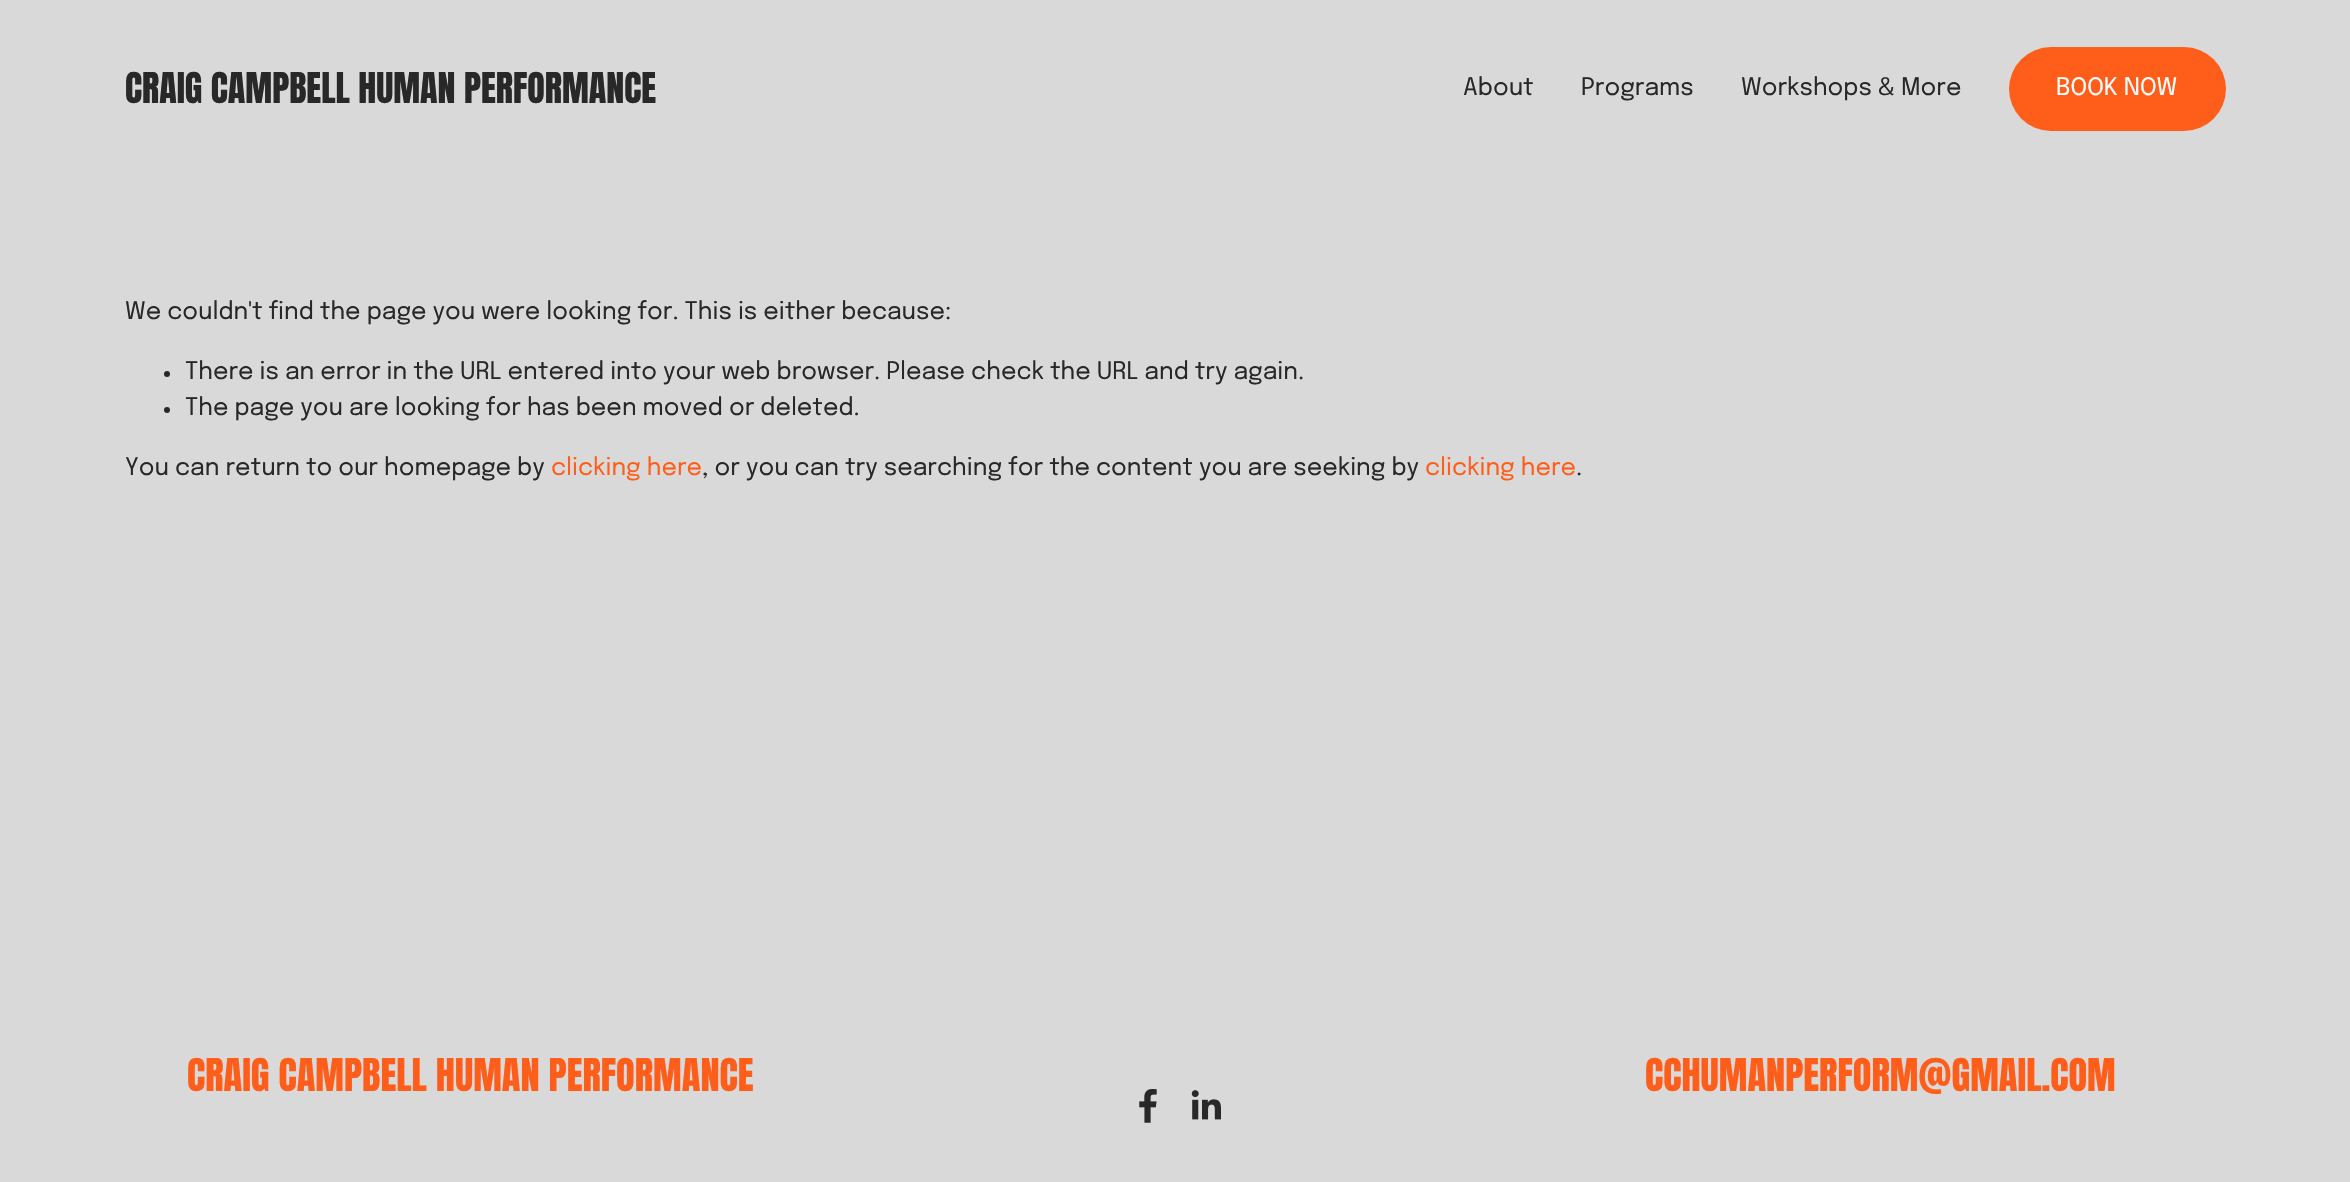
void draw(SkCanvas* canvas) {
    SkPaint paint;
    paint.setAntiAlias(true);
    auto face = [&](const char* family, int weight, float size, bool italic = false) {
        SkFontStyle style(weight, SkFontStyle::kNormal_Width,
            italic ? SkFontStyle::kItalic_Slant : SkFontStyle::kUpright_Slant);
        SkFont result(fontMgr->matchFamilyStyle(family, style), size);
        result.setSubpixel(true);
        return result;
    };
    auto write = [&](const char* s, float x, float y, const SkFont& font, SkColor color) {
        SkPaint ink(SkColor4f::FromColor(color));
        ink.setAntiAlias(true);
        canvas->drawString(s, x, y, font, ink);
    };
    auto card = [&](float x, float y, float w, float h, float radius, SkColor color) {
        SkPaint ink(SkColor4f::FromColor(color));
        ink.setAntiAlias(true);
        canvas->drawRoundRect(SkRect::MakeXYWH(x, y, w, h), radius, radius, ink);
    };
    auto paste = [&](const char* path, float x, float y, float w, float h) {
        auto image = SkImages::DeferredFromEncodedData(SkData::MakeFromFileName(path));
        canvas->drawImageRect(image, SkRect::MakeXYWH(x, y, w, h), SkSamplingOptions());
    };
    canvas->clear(SkColorSetRGB(218, 217, 217));
    auto kFont1 = face("Anton", 400, 36);
    write("CRAIG CAMPBELL HUMAN PERFORMANCE", 125, 103, kFont1, SkColorSetRGB(40, 40, 40));
    auto kFont2 = face("Epilogue", 400, 24);
    write("About", 1463, 95, kFont2, SkColorSetRGB(40, 40, 40));
    write("Programs", 1581, 95, kFont2, SkColorSetRGB(40, 40, 40));
    write("Workshops & More", 1741, 95, kFont2, SkColorSetRGB(40, 40, 40));
    card(2009, 47, 217, 84, 42, SkColorSetRGB(255, 94, 26));
    write("BOOK NOW", 2056, 95, kFont2, SK_ColorWHITE);
    write("We couldn't find the page you were looking for. This is either because:", 125, 319, kFont2, SkColorSetRGB(40, 40, 40));
    paint.setColor(SkColorSetRGB(40, 40, 40));
    canvas->drawCircle(167, 374, 3, paint);
    write("There is an error in the URL entered into your web browser. Please check the URL and try again.", 185, 379, kFont2, SkColorSetRGB(40, 40, 40));
    canvas->drawCircle(167, 410, 3, paint);
    write("The page you are looking for has been moved or deleted.", 185, 415, kFont2, SkColorSetRGB(40, 40, 40));
    write("You can return to our homepage by", 125, 475, kFont2, SkColorSetRGB(40, 40, 40));
    write("clicking here", 551, 475, kFont2, SkColorSetRGB(255, 94, 26));
    write(", or you can try searching for the content you are seeking by", 702, 475, kFont2, SkColorSetRGB(40, 40, 40));
    write("clicking here", 1425, 475, kFont2, SkColorSetRGB(255, 94, 26));
    write(".", 1576, 475, kFont2, SkColorSetRGB(40, 40, 40));
    auto kFont3 = face("Anton", 400, 38.4f);
    write("CRAIG CAMPBELL HUMAN PERFORMANCE", 187, 1091, kFont3, SkColorSetRGB(255, 94, 26));
    write("CCHUMANPERFORM@GMAIL.COM", 1645, 1091, kFont3, SkColorSetRGB(255, 94, 26));
    paste("pic1.png", 1139, 1089, 18, 34);
    paste("pic2.png", 1191, 1090, 30, 30);
}
